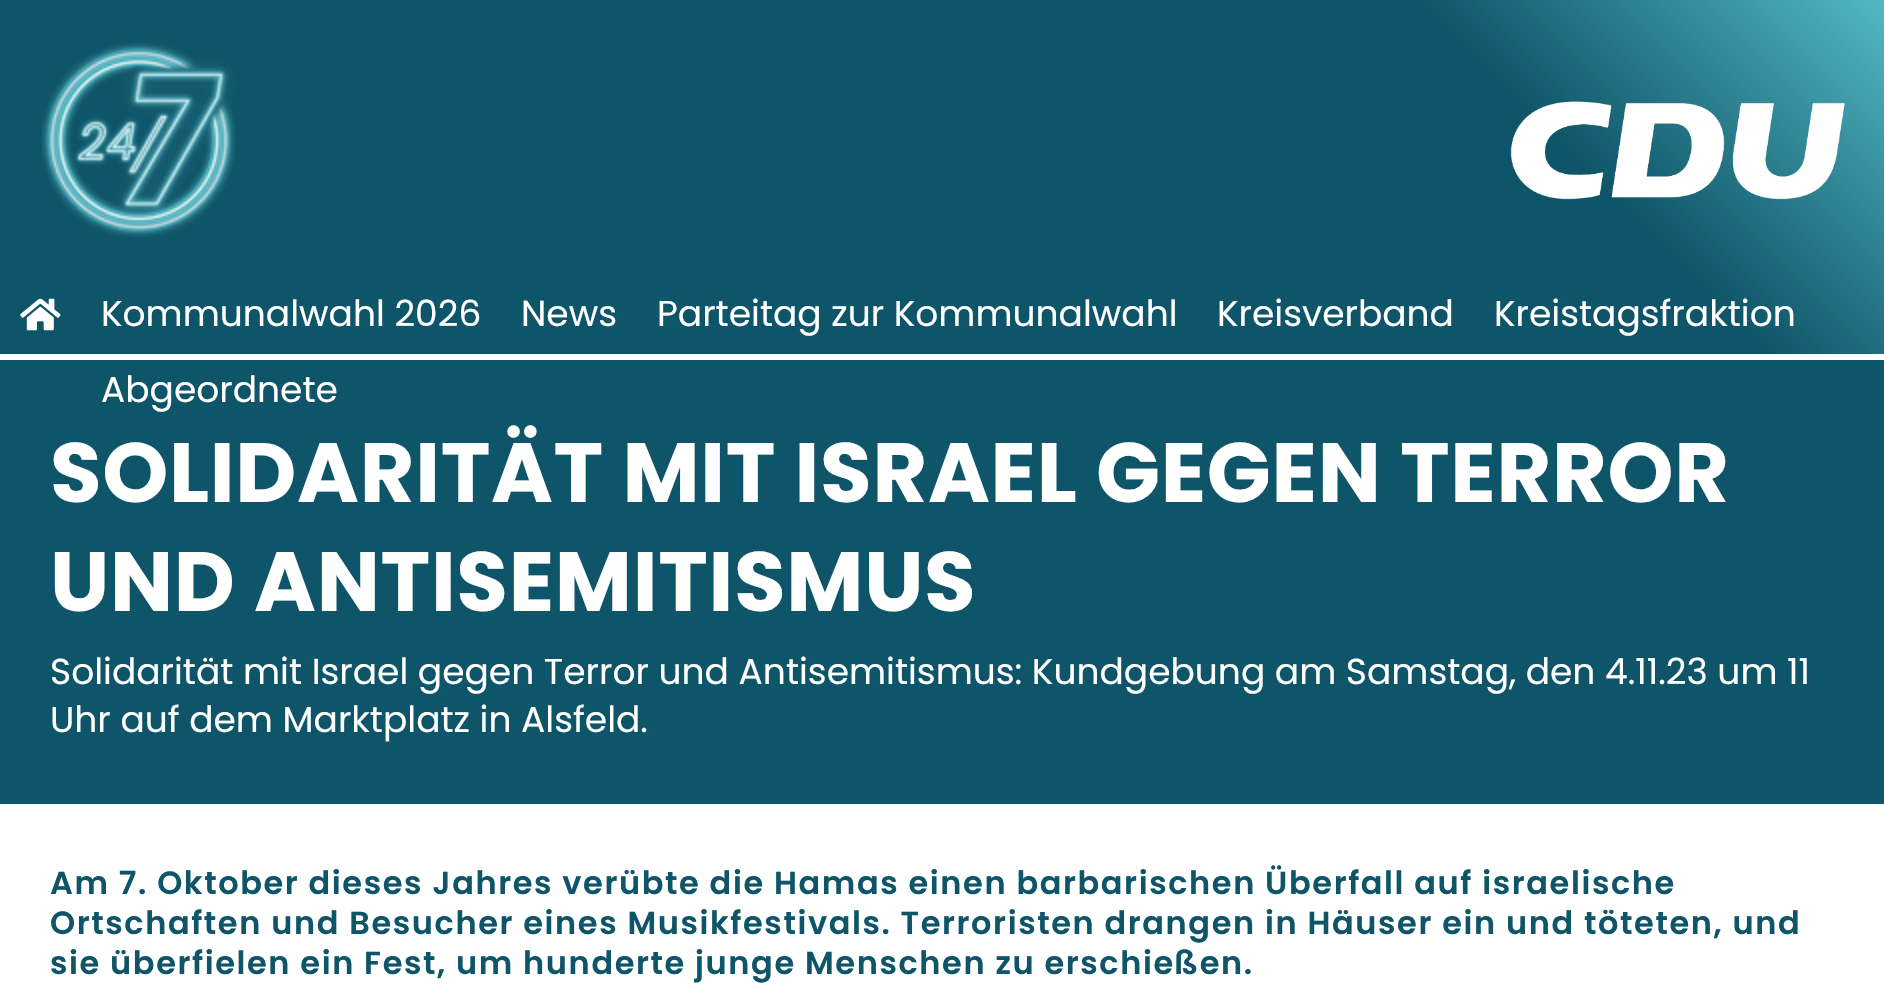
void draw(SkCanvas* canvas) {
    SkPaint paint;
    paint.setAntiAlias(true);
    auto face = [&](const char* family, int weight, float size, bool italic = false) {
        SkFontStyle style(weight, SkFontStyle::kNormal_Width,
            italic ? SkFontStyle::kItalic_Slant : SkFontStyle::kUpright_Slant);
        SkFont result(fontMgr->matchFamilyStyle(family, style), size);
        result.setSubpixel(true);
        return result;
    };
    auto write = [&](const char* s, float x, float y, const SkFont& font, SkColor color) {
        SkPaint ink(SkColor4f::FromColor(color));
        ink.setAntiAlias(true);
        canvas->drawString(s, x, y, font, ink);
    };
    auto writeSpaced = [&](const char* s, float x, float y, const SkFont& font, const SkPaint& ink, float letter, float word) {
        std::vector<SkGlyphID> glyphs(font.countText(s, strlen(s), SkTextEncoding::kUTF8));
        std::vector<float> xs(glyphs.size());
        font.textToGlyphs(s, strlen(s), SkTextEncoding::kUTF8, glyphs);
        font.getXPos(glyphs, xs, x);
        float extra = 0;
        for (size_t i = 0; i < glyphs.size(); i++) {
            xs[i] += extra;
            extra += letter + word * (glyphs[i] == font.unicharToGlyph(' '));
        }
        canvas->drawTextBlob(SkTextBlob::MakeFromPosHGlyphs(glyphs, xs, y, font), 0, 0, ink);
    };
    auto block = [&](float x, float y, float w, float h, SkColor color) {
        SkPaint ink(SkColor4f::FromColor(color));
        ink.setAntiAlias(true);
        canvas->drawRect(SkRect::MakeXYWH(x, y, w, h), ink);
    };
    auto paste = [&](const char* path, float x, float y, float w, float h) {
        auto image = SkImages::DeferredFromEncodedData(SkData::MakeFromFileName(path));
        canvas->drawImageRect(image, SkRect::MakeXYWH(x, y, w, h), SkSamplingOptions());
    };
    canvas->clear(SK_ColorWHITE);
    {
        const SkColor colors[] = {SkColorSetRGB(15, 85, 105), SkColorSetRGB(82, 183, 193)};
        const float stops[] = {0.79f, 1};
        const SkPoint ends[] = {{383, 737}, {1502, -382}};
        paint.setShader(SkGradientShader::MakeLinear(ends, colors, stops, 2, SkTileMode::kClamp));
        paint.setAlpha(255);
    }
    canvas->drawRect(SkRect::MakeXYWH(0, 0, 1884, 354), paint);
    paste("pic1.png", 41, 42, 195, 196);
    paste("pic2.png", 1510, 101, 335, 99);
    paste("pic3.png", 20, 298, 41, 33);
    auto kFont1 = face("Poppins", 400, 36);
    write("Kommunalwahl 2026", 101, 326, kFont1, SK_ColorWHITE);
    write("News", 521, 326, kFont1, SK_ColorWHITE);
    write("Parteitag zur Kommunalwahl", 657, 326, kFont1, SK_ColorWHITE);
    write("Kreisverband", 1217, 326, kFont1, SK_ColorWHITE);
    write("Kreistagsfraktion", 1494, 326, kFont1, SK_ColorWHITE);
    block(0, 360, 1884, 444, SkColorSetRGB(15, 85, 105));
    write("Abgeordnete", 101, 402, kFont1, SK_ColorWHITE);
    auto kFont2 = face("Poppins", 700, 84);
    paint.setShader(nullptr);
    paint.setColor(SK_ColorWHITE);
    writeSpaced("SOLIDARITÄT MIT ISRAEL GEGEN TERROR", 50, 502, kFont2, paint, 0.7f, 0);
    writeSpaced("UND ANTISEMITISMUS", 50, 611, kFont2, paint, 0.7f, 0);
    write("Solidarität mit Israel gegen Terror und Antisemitismus: Kundgebung am Samstag, den 4.11.23 um 11", 50, 684, kFont1, SK_ColorWHITE);
    write("Uhr auf dem Marktplatz in Alsfeld.", 50, 732, kFont1, SK_ColorWHITE);
    auto kFont3 = face("Poppins", 600, 32);
    paint.setColor(SkColorSetRGB(15, 85, 105));
    writeSpaced("Am 7. Oktober dieses Jahres verübte die Hamas einen barbarischen Überfall auf israelische", 50, 894, kFont3, paint, 1.6f, 0);
    writeSpaced("Ortschaften und Besucher eines Musikfestivals. Terroristen drangen in Häuser ein und töteten, und", 50, 934, kFont3, paint, 1.6f, 0);
    writeSpaced("sie überfielen ein Fest, um hunderte junge Menschen zu erschießen.", 50, 974, kFont3, paint, 1.6f, 0);
}
